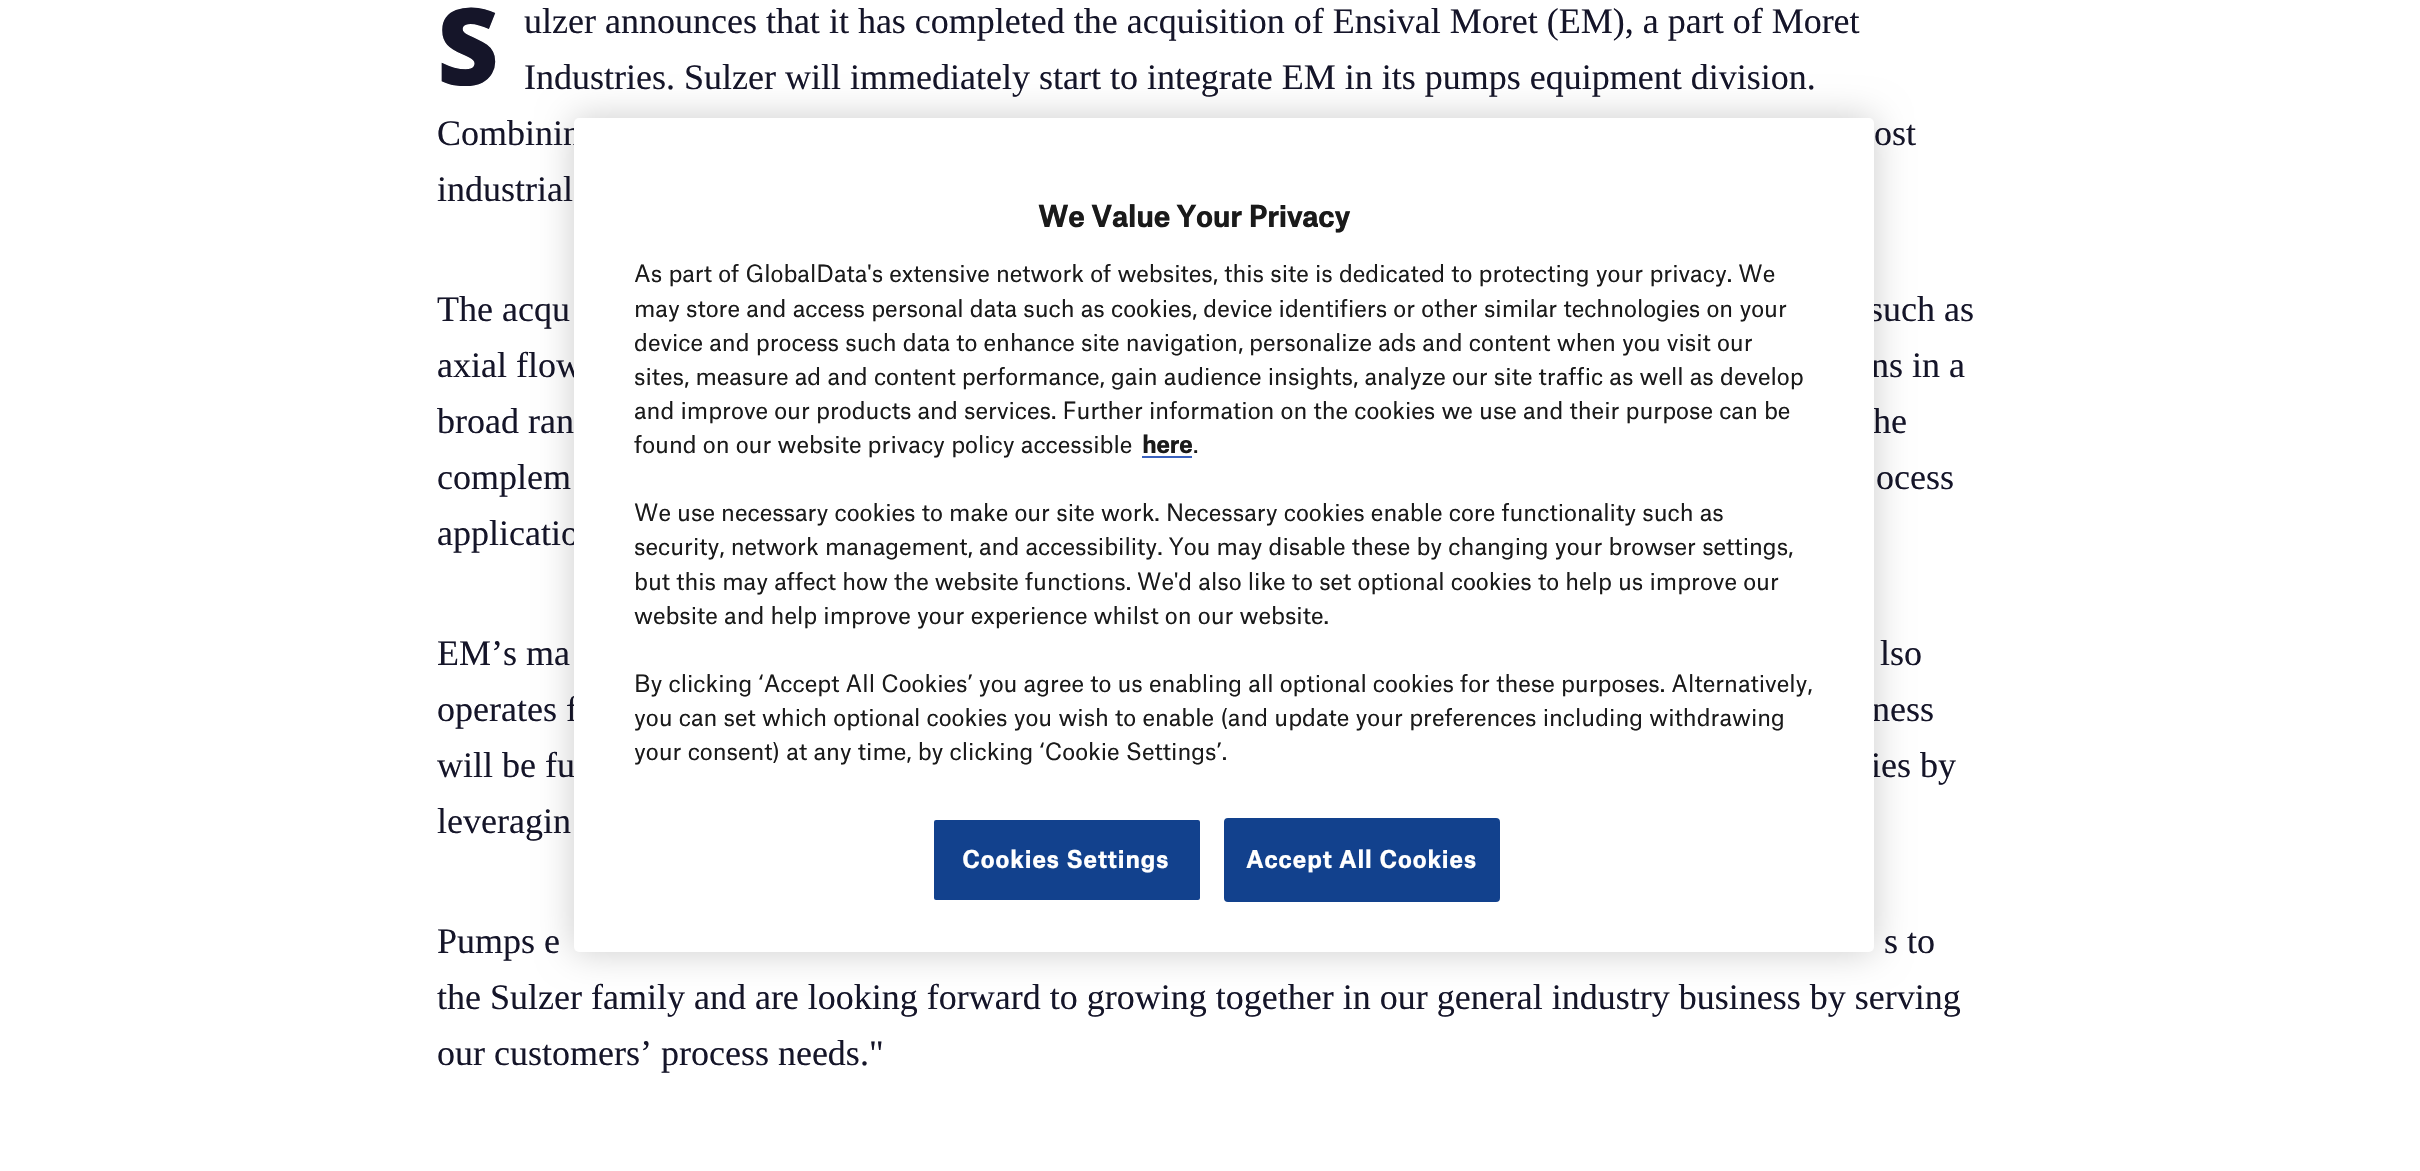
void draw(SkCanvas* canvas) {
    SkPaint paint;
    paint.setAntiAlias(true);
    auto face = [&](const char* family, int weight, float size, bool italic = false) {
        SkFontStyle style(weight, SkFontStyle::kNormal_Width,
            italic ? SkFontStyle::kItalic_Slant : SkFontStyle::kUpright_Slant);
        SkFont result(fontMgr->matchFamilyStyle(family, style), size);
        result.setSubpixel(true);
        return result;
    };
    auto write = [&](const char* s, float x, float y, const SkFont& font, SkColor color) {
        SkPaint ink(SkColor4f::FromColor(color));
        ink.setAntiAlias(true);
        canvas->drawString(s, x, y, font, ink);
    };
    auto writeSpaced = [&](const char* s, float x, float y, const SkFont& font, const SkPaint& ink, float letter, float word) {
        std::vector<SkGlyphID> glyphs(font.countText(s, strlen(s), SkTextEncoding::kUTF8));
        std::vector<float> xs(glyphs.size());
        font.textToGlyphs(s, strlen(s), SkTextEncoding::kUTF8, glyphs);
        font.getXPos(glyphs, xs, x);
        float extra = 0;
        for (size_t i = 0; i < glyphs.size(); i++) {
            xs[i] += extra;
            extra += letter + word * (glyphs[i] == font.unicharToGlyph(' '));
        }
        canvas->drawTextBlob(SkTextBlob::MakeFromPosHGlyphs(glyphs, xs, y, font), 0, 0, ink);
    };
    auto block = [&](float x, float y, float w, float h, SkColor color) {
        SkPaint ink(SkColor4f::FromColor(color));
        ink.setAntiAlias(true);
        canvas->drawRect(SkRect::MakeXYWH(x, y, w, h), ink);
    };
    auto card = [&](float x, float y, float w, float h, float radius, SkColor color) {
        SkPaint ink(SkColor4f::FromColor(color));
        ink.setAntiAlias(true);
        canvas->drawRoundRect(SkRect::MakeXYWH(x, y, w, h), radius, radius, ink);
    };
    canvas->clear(SK_ColorWHITE);
    auto kFont1 = face("Noto Sans", 900, 107);
    write("S", 437, 85, kFont1, SkColorSetRGB(21, 21, 41));
    auto kFont2 = face("Liberation Serif", 400, 36);
    write("ulzer announces that it has completed the acquisition of Ensival Moret (EM), a part of Moret", 524, 33, kFont2, SkColorSetRGB(21, 21, 41));
    write("Industries. Sulzer will immediately start to integrate EM in its pumps equipment division.", 524, 89, kFont2, SkColorSetRGB(21, 21, 41));
    write("Combinin", 437, 145, kFont2, SkColorSetRGB(21, 21, 41));
    write("ost", 1874, 145, kFont2, SkColorSetRGB(21, 21, 41));
    write("industrial", 437, 201, kFont2, SkColorSetRGB(21, 21, 41));
    write("The acqu", 437, 321, kFont2, SkColorSetRGB(21, 21, 41));
    write("such as", 1869, 321, kFont2, SkColorSetRGB(21, 21, 41));
    write("axial flow", 437, 377, kFont2, SkColorSetRGB(21, 21, 41));
    write("ns in a", 1871, 377, kFont2, SkColorSetRGB(21, 21, 41));
    write("broad ran", 437, 433, kFont2, SkColorSetRGB(21, 21, 41));
    write("he", 1873, 433, kFont2, SkColorSetRGB(21, 21, 41));
    write("complem", 437, 489, kFont2, SkColorSetRGB(21, 21, 41));
    write("ocess", 1876, 489, kFont2, SkColorSetRGB(21, 21, 41));
    write("applicatio", 437, 545, kFont2, SkColorSetRGB(21, 21, 41));
    write("EM’s ma", 437, 665, kFont2, SkColorSetRGB(21, 21, 41));
    write("lso", 1880, 665, kFont2, SkColorSetRGB(21, 21, 41));
    write("operates f", 437, 721, kFont2, SkColorSetRGB(21, 21, 41));
    write("ness", 1872, 721, kFont2, SkColorSetRGB(21, 21, 41));
    write("will be fu", 437, 777, kFont2, SkColorSetRGB(21, 21, 41));
    write("ies by", 1871, 777, kFont2, SkColorSetRGB(21, 21, 41));
    write("leveragin", 437, 833, kFont2, SkColorSetRGB(21, 21, 41));
    write("Pumps e", 437, 953, kFont2, SkColorSetRGB(21, 21, 41));
    write("s to", 1884, 953, kFont2, SkColorSetRGB(21, 21, 41));
    write("the Sulzer family and are looking forward to growing together in our general industry business by serving", 437, 1009, kFont2, SkColorSetRGB(21, 21, 41));
    write("our customers’ process needs.\"", 437, 1065, kFont2, SkColorSetRGB(21, 21, 41));
    paint.setColor(SkColorSetARGB(51, 0, 0, 0));
    paint.setMaskFilter(SkMaskFilter::MakeBlur(kNormal_SkBlurStyle, 18));
    canvas->drawRoundRect(SkRect::MakeXYWH(574, 118, 1300, 834), 5, 5, paint);
    paint.setMaskFilter(nullptr);
    card(574, 118, 1300, 834, 5, SK_ColorWHITE);
    auto kFont3 = face("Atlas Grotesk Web", 700, 28);
    write("We Value Your Privacy", 1038, 227, kFont3, SkColorSetRGB(26, 26, 26));
    auto kFont4 = face("Atlas Grotesk Web", 400, 22.75f);
    write("As part of GlobalData's extensive network of websites, this site is dedicated to protecting your privacy. We", 634, 282, kFont4, SkColorSetRGB(26, 26, 26));
    write("may store and access personal data such as cookies, device identifiers or other similar technologies on your", 634, 317, kFont4, SkColorSetRGB(26, 26, 26));
    write("device and process such data to enhance site navigation,", 634, 351, kFont4, SkColorSetRGB(26, 26, 26));
    write("personalize ads and content when you visit our", 1249, 351, kFont4, SkColorSetRGB(26, 26, 26));
    write("sites, measure ad and content performance, gain audience insights, analyze our site traffic as well as develop", 634, 385, kFont4, SkColorSetRGB(26, 26, 26));
    write("and improve our products and services. Further information on the cookies we use and their purpose can be", 634, 419, kFont4, SkColorSetRGB(26, 26, 26));
    write("found on our website privacy policy accessible", 634, 453, kFont4, SkColorSetRGB(26, 26, 26));
    auto kFont5 = face("Atlas Grotesk Web", 700, 22.75f);
    write("here", 1142, 453, kFont5, SkColorSetRGB(26, 26, 26));
    block(1142, 456, 50, 2, SkColorSetRGB(56, 96, 190));
    write(".", 1193, 453, kFont4, SkColorSetRGB(26, 26, 26));
    write("We use necessary cookies to make our site work.", 634, 521, kFont4, SkColorSetRGB(26, 26, 26));
    write("Necessary cookies enable core functionality such as", 1166, 521, kFont4, SkColorSetRGB(26, 26, 26));
    write("security, network management, and accessibility. You may disable these by changing your browser settings,", 634, 555, kFont4, SkColorSetRGB(26, 26, 26));
    write("but this may affect how the website functions.", 634, 590, kFont4, SkColorSetRGB(26, 26, 26));
    write("We'd also like to set optional cookies to help us improve our", 1137, 590, kFont4, SkColorSetRGB(26, 26, 26));
    write("website and help improve your experience whilst on our website.", 634, 624, kFont4, SkColorSetRGB(26, 26, 26));
    write("By clicking ‘Accept All Cookies’ you agree to us enabling all optional cookies for these purposes. Alternatively,", 634, 692, kFont4, SkColorSetRGB(26, 26, 26));
    write("you can set which optional cookies you wish to enable (and update your preferences including withdrawing", 634, 726, kFont4, SkColorSetRGB(26, 26, 26));
    write("your consent) at any time, by clicking ‘Cookie Settings’.", 634, 760, kFont4, SkColorSetRGB(26, 26, 26));
    paint.setColor(SkColorSetRGB(18, 65, 141));
    canvas->drawRoundRect(SkRect::MakeXYWH(933, 819, 268, 82), 3, 3, paint);
    paint.setStyle(SkPaint::kStroke_Style);
    paint.setStrokeWidth(2);
    paint.setColor(SK_ColorWHITE);
    canvas->drawRoundRect(SkRect::MakeXYWH(933, 819, 268, 82), 3, 3, paint);
    paint.setStyle(SkPaint::kFill_Style);
    writeSpaced("Cookies Settings", 962, 868, kFont5, paint, 1.1f, 0);
    paint.setColor(SkColorSetRGB(18, 65, 141));
    canvas->drawRoundRect(SkRect::MakeXYWH(1225, 819, 274, 82), 3, 3, paint);
    paint.setStyle(SkPaint::kStroke_Style);
    canvas->drawRoundRect(SkRect::MakeXYWH(1225, 819, 274, 82), 3, 3, paint);
    paint.setStyle(SkPaint::kFill_Style);
    paint.setColor(SK_ColorWHITE);
    writeSpaced("Accept All Cookies", 1246, 868, kFont5, paint, 1.1f, 0);
}
